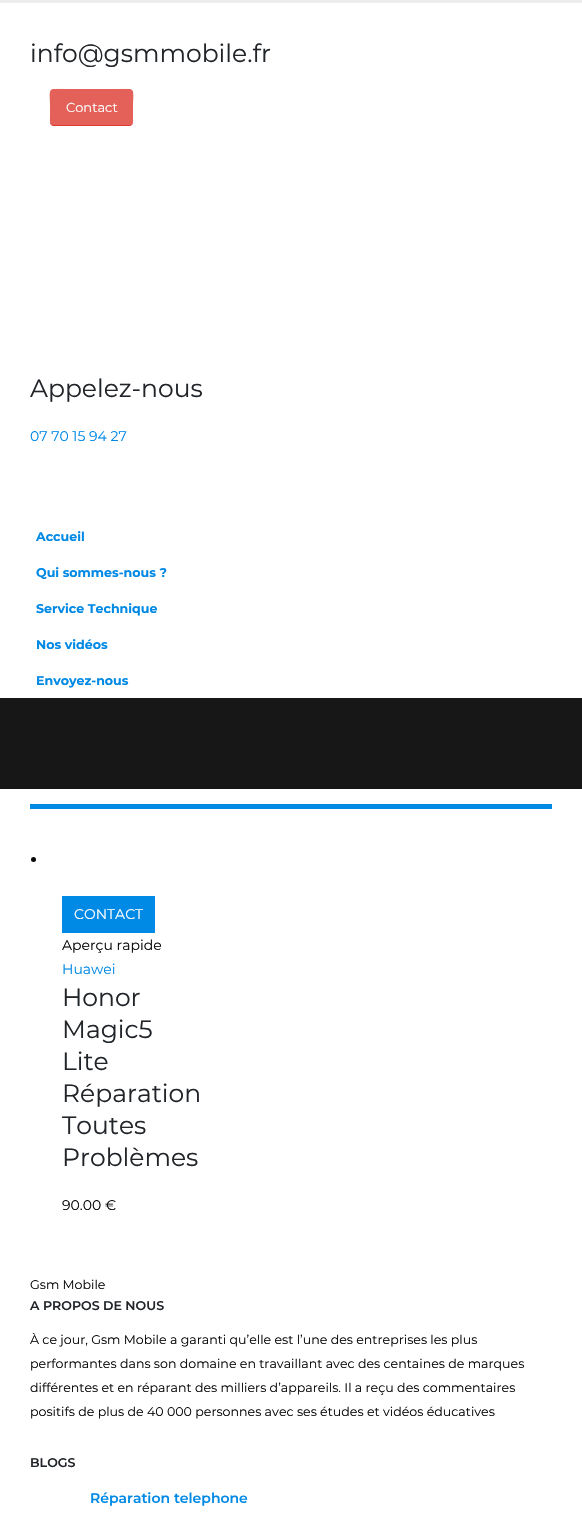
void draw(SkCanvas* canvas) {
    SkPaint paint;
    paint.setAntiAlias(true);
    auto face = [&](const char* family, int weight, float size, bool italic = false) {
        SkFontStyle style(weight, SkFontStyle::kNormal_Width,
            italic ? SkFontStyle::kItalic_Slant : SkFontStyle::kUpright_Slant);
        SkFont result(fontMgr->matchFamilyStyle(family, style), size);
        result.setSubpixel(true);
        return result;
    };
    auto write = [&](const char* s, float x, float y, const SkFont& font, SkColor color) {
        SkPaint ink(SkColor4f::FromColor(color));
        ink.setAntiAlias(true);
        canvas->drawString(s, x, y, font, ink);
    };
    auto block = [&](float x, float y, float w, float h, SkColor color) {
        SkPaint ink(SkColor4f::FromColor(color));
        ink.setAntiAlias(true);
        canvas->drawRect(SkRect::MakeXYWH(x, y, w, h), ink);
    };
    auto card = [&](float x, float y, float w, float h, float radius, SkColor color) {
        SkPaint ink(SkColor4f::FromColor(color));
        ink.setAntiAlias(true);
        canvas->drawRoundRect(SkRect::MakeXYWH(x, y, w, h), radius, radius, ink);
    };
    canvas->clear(SK_ColorWHITE);
    block(0, 0, 582, 3, SkColorSetRGB(237, 237, 237));
    auto kFont1 = face("Montserrat", 400, 25);
    write("info@gsmmobile.fr", 30, 62, kFont1, SkColorSetRGB(33, 37, 41));
    card(50, 89, 83, 37, 4, SkColorSetRGB(227, 97, 89));
    paint.setStyle(SkPaint::kStroke_Style);
    paint.setStrokeWidth(1);
    paint.setColor(SkColorSetRGB(220, 56, 46));
    canvas->drawPath(SkPathBuilder().moveTo(131.5f, 124.5f).lineTo(129.5f, 125.5f).lineTo(53.5f, 125.5f).lineTo(51.5f, 124.5f).detach(), paint);
    paint.setColor(SkColorSetRGB(227, 97, 89));
    canvas->drawPath(SkPathBuilder().moveTo(51.5f, 124.5f).cubicTo(50, 122.5f, 50.5f, 119, 50.5f, 117).lineTo(50.5f, 107.5f).cubicTo(50.5f, 87.5f, 46.5f, 89.5f, 66.5f, 89.5f).lineTo(116.5f, 89.5f).cubicTo(136.5f, 89.5f, 132.5f, 87.5f, 132.5f, 107.5f).lineTo(132.5f, 117).cubicTo(132.5f, 119, 133, 122.5f, 131.5f, 124.5f).detach(), paint);
    auto kFont2 = face("Montserrat", 400, 13);
    write("Contact", 66, 112, kFont2, SK_ColorWHITE);
    write("Appelez-nous", 30, 397, kFont1, SkColorSetRGB(33, 37, 41));
    auto kFont3 = face("Montserrat", 400, 14);
    write("07 70 15 94 27", 30, 441, kFont3, SkColorSetRGB(0, 137, 229));
    auto kFont4 = face("Montserrat", 700, 12.6f);
    write("Accueil", 36, 541, kFont4, SkColorSetRGB(0, 137, 229));
    write("Qui sommes-nous ?", 36, 577, kFont4, SkColorSetRGB(0, 137, 229));
    write("Service Technique", 36, 613, kFont4, SkColorSetRGB(0, 137, 229));
    write("Nos vidéos", 36, 649, kFont4, SkColorSetRGB(0, 137, 229));
    write("Envoyez-nous", 36, 685, kFont4, SkColorSetRGB(0, 137, 229));
    block(0, 698, 582, 91, SkColorSetRGB(23, 23, 23));
    block(30, 804, 522, 5, SkColorSetRGB(0, 137, 229));
    paint.setStyle(SkPaint::kFill_Style);
    paint.setColor(SkColorSetRGB(10, 10, 10));
    canvas->drawCircle(33.5f, 859.5f, 2.5f, paint);
    block(62, 896, 93, 37, SkColorSetRGB(0, 137, 229));
    write("CONTACT", 74, 919, kFont3, SK_ColorWHITE);
    write("Aperçu rapide", 62, 950, kFont3, SkColorSetRGB(10, 10, 10));
    write("Huawei", 62, 974, kFont3, SkColorSetRGB(0, 137, 229));
    write("Honor", 62, 1006, kFont1, SkColorSetRGB(33, 37, 41));
    write("Magic5", 62, 1038, kFont1, SkColorSetRGB(33, 37, 41));
    write("Lite", 62, 1070, kFont1, SkColorSetRGB(33, 37, 41));
    write("Réparation", 62, 1102, kFont1, SkColorSetRGB(33, 37, 41));
    write("Toutes", 62, 1134, kFont1, SkColorSetRGB(33, 37, 41));
    write("Problèmes", 62, 1166, kFont1, SkColorSetRGB(33, 37, 41));
    write("90.00 €", 62, 1210, kFont3, SkColorSetRGB(10, 10, 10));
    auto kFont5 = face("Montserrat", 400, 12.6f);
    write("Gsm Mobile", 30, 1289, kFont5, SkColorSetRGB(10, 10, 10));
    auto kFont6 = face("Montserrat", 600, 12.6f);
    write("A PROPOS DE NOUS", 30, 1310, kFont6, SkColorSetRGB(33, 37, 41));
    write("À ce jour, Gsm Mobile a garanti qu’elle est l’une des entreprises les plus", 30, 1344, kFont5, SkColorSetRGB(10, 10, 10));
    write("performantes dans son domaine en travaillant avec des centaines de marques", 30, 1368, kFont5, SkColorSetRGB(10, 10, 10));
    write("différentes et en réparant des milliers d’appareils. Il a reçu des commentaires", 30, 1392, kFont5, SkColorSetRGB(10, 10, 10));
    write("positifs de plus de 40 000 personnes avec ses études et vidéos éducatives", 30, 1416, kFont5, SkColorSetRGB(10, 10, 10));
    write("BLOGS", 30, 1467, kFont6, SkColorSetRGB(33, 37, 41));
    auto kFont7 = face("Montserrat", 600, 14);
    write("Réparation telephone", 90, 1503, kFont7, SkColorSetRGB(0, 137, 229));
}
